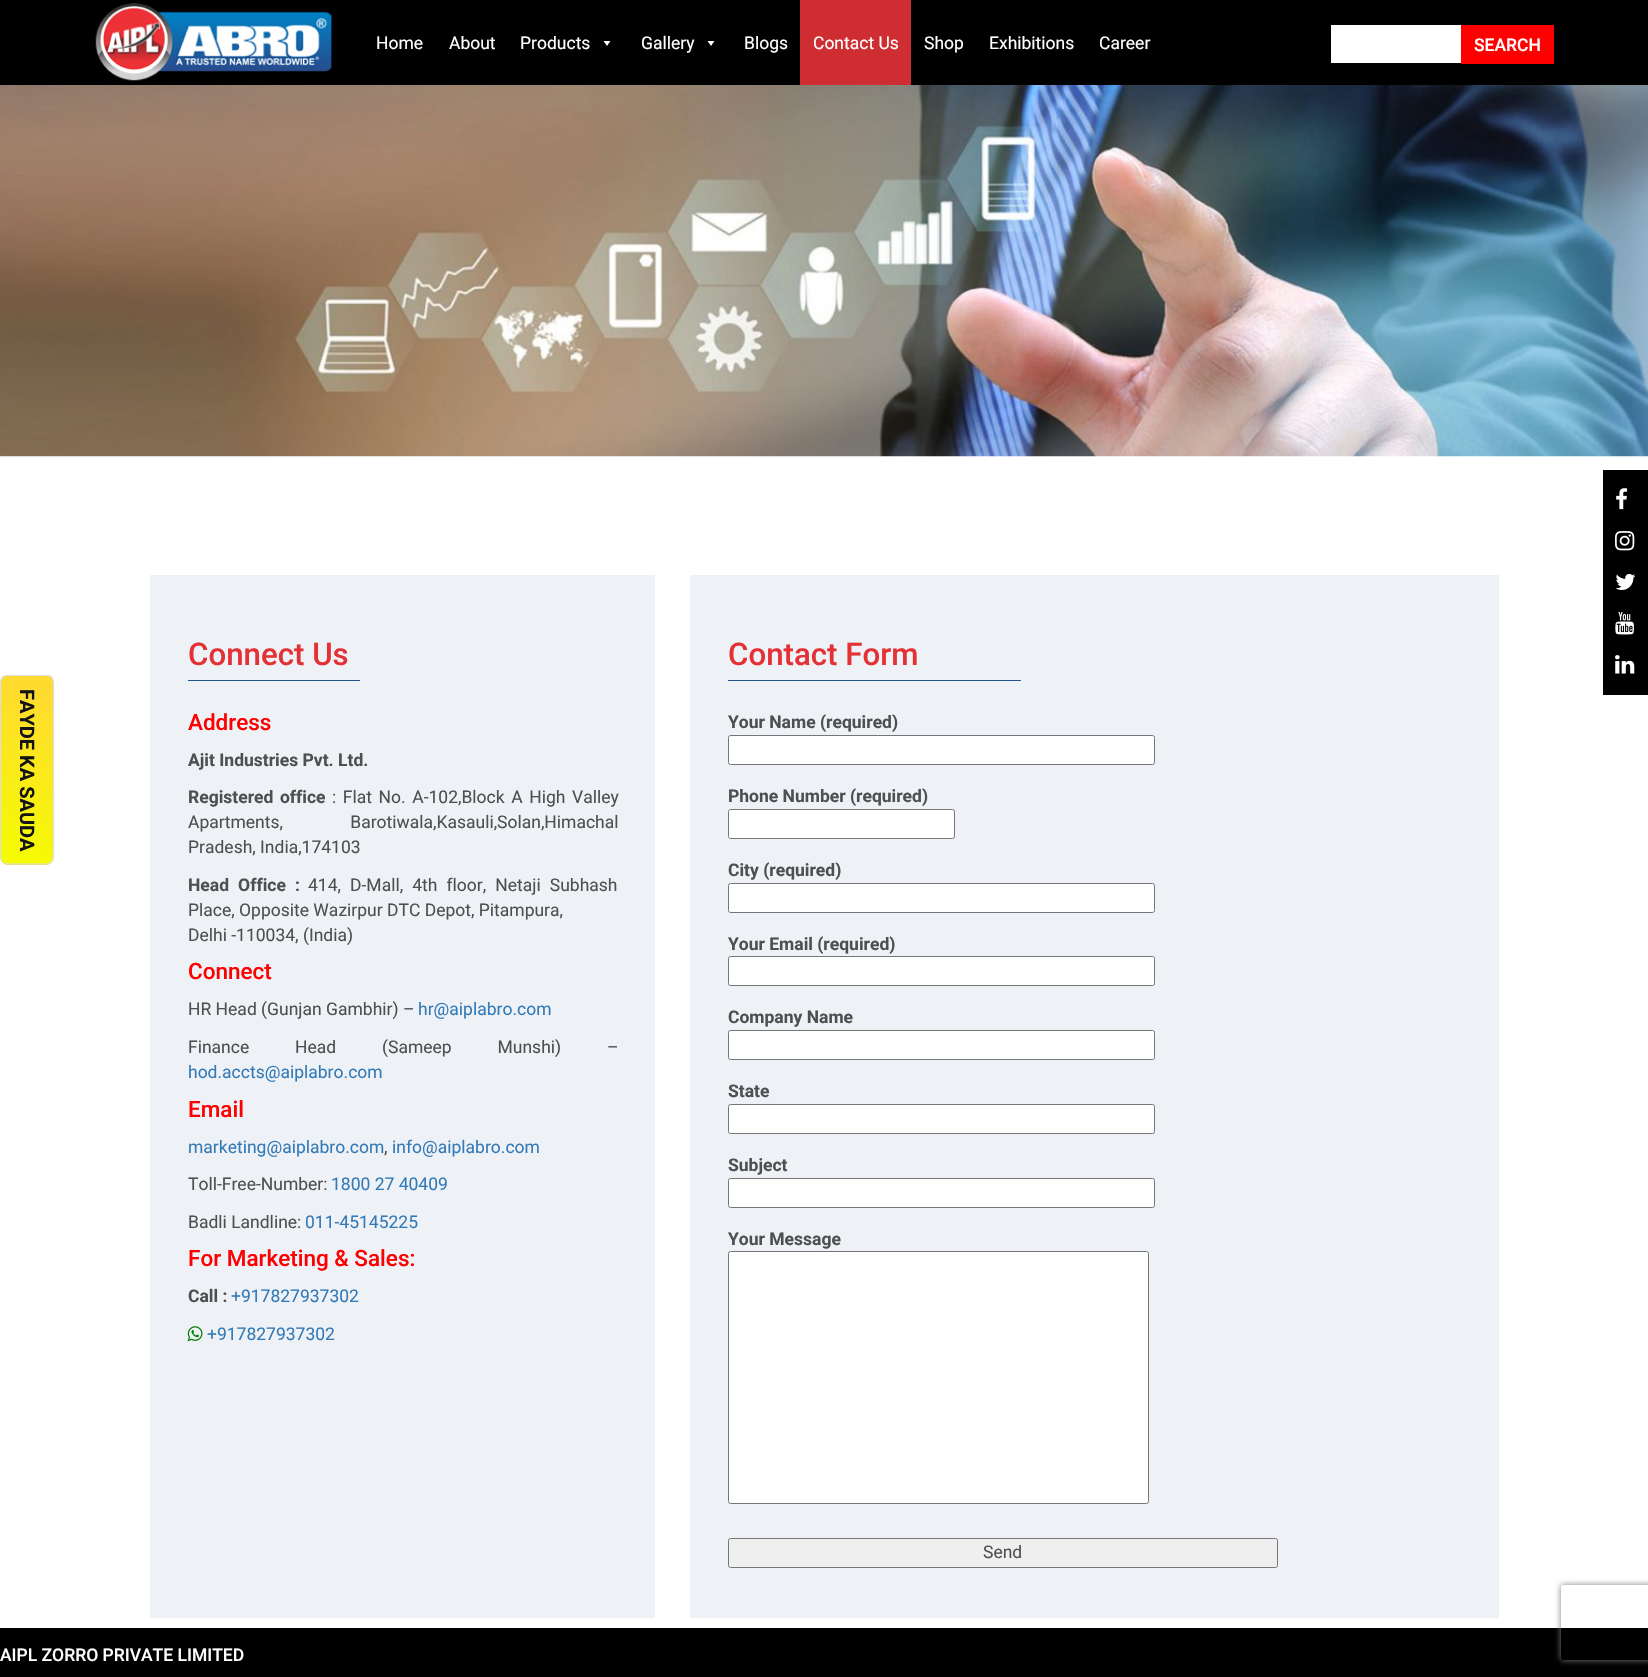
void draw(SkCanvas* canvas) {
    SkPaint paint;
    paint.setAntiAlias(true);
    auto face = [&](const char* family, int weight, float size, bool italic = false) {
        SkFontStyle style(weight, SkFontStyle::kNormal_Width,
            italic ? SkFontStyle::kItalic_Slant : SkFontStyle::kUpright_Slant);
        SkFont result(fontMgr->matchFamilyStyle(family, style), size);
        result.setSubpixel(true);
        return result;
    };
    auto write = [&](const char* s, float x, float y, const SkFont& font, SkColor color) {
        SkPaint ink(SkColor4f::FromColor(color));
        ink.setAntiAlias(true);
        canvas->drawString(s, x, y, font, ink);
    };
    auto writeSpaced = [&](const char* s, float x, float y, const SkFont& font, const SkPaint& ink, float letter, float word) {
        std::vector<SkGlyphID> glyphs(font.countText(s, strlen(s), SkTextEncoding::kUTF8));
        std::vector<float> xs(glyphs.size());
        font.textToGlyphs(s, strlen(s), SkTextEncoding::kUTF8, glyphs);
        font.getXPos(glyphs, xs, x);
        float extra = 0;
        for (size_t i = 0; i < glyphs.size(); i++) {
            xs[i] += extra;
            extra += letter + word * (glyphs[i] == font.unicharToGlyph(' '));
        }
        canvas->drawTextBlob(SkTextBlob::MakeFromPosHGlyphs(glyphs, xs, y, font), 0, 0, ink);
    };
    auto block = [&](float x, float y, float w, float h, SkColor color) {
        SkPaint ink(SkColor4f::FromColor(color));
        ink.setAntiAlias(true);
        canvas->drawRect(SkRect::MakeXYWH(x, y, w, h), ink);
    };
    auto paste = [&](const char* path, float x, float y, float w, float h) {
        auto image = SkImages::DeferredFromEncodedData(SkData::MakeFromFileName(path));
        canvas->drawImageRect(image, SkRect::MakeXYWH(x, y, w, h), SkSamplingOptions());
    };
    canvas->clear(SK_ColorWHITE);
    block(0, 0, 1648, 85, SK_ColorBLACK);
    paste("pic1.png", 95, 3, 237, 78);
    auto kFont1 = face("Roboto", 400, 17.5f);
    write("Home", 376, 49, kFont1, SK_ColorWHITE);
    write("About", 449, 49, kFont1, SK_ColorWHITE);
    write("Products", 520, 49, kFont1, SK_ColorWHITE);
    paint.setColor(SK_ColorWHITE);
    canvas->drawPath(SkPathBuilder().moveTo(610.5f, 41).lineTo(607, 46).lineTo(603.5f, 41).close().detach(), paint);
    write("Gallery", 641, 49, kFont1, SK_ColorWHITE);
    canvas->drawPath(SkPathBuilder().moveTo(714.5f, 41).lineTo(711, 46).lineTo(707.5f, 41).close().detach(), paint);
    write("Blogs", 744, 49, kFont1, SK_ColorWHITE);
    block(800, 0, 111, 85, SkColorSetRGB(206, 46, 50));
    write("Contact Us", 813, 49, kFont1, SK_ColorWHITE);
    write("Shop", 924, 49, kFont1, SK_ColorWHITE);
    write("Exhibitions", 989, 49, kFont1, SK_ColorWHITE);
    write("Career", 1099, 49, kFont1, SK_ColorWHITE);
    block(1331, 25, 130, 38, SK_ColorWHITE);
    block(1461, 25, 93, 39, SkColorSetRGB(255, 0, 0));
    auto kFont2 = face("Roboto", 500, 17.5f);
    write("SEARCH", 1474, 51, kFont2, SK_ColorWHITE);
    paste("pic2.png", 0, 85, 1648, 372);
    block(1603, 470, 45, 225, SK_ColorBLACK);
    paste("pic3.png", 1616, 488, 12, 22);
    paste("pic4.png", 1615, 531, 20, 20);
    paste("pic5.png", 1615, 573, 21, 17);
    paste("pic6.png", 1615, 611, 19, 24);
    paste("pic7.png", 1615, 655, 20, 19);
    block(0, 1628, 1648, 49, SK_ColorBLACK);
    {
        const SkColor colors[] = {SkColorSetRGB(255, 219, 47), SkColorSetRGB(244, 253, 0)};
        const float stops[] = {0.11f, 1};
        const SkPoint ends[] = {{60, 491}, {-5.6f, 674}};
        paint.setShader(SkGradientShader::MakeLinear(ends, colors, stops, 2, SkTileMode::kClamp));
        paint.setAlpha(255);
    }
    canvas->drawPath(SkPathBuilder().moveTo(51, 676).lineTo(3, 676).cubicTo(5, 675, 6, 675, 7, 675).lineTo(47, 675).cubicTo(48, 675, 50, 675, 51, 676).close().detach(), paint);
    {
        const SkColor colors[] = {SkColorSetRGB(255, 219, 47), SkColorSetRGB(244, 253, 0)};
        const float stops[] = {0.11f, 1};
        const SkPoint ends[] = {{60, 678}, {-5.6f, 862}};
        paint.setShader(SkGradientShader::MakeLinear(ends, colors, stops, 2, SkTileMode::kClamp));
        paint.setAlpha(255);
    }
    canvas->drawPath(SkPathBuilder().moveTo(53, 678).lineTo(53, 861).lineTo(50, 864).lineTo(4, 864).lineTo(1, 861).lineTo(1, 679).lineTo(3, 676).lineTo(51, 676).close().detach(), paint);
    {
        const SkColor colors[] = {SkColorSetRGB(255, 219, 47), SkColorSetRGB(244, 253, 0)};
        const float stops[] = {0.11f, 1};
        const SkPoint ends[] = {{60, 866}, {-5.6f, 1049}};
        paint.setShader(SkGradientShader::MakeLinear(ends, colors, stops, 2, SkTileMode::kClamp));
        paint.setAlpha(255);
    }
    canvas->drawPath(SkPathBuilder().moveTo(50, 864).lineTo(47, 865).lineTo(7, 865).lineTo(4, 864).close().detach(), paint);
    paint.setStyle(SkPaint::kStroke_Style);
    paint.setStrokeWidth(1.2f);
    paint.setShader(nullptr);
    paint.setColor(SkColorSetRGB(221, 221, 221));
    canvas->drawPath(SkPathBuilder().moveTo(53.5f, 682.5f).lineTo(53.5f, 857.5f).cubicTo(53.5f, 861, 50.5f, 864, 46.5f, 864).lineTo(7.5f, 864).cubicTo(3.5f, 864, 0.5f, 861, 0.5f, 857.5f).lineTo(0.5f, 682.5f).cubicTo(0.5f, 678.5f, 3.5f, 675.5f, 7.5f, 675.5f).lineTo(46.5f, 675.5f).cubicTo(50.5f, 675.5f, 53.5f, 678.5f, 53.5f, 682.5f).close().detach(), paint);
    auto kFont3 = face("Roboto", 700, 20);
    canvas->save();
    canvas->rotate(90, 20, 689);
    write("FAYDE KA SAUDA", 20, 689, kFont3, SkColorSetRGB(20, 20, 20));
    canvas->restore();
    write("AIPL ZORRO PRIVATE LIMITED", 0, 1661, kFont2, SK_ColorWHITE);
    block(150, 575, 505, 1043, SkColorSetRGB(238, 241, 245));
    auto kFont4 = face("Roboto", 500, 31.25f);
    write("Connect Us", 188, 665, kFont4, SkColorSetRGB(228, 49, 53));
    block(188, 680, 172, 1, SkColorSetRGB(35, 82, 147));
    auto kFont5 = face("Roboto", 500, 22.5f);
    write("Address", 188, 730, kFont5, SkColorSetRGB(255, 0, 0));
    auto kFont6 = face("Roboto", 700, 17.5f);
    write("Ajit Industries Pvt. Ltd.", 188, 766, kFont6, SkColorSetRGB(78, 80, 80));
    paint.setStyle(SkPaint::kFill_Style);
    paint.setColor(SkColorSetRGB(78, 80, 80));
    writeSpaced("Registered office", 188, 803, kFont6, paint, 0, 2.25f);
    writeSpaced(": Flat No. A-102,Block A High Valley", 332, 803, kFont1, paint, 0, 2.25f);
    writeSpaced("Apartments, Barotiwala,Kasauli,Solan,Himachal", 188, 828, kFont1, paint, 0, 63);
    write("Pradesh, India,174103", 188, 853, kFont1, SkColorSetRGB(78, 80, 80));
    writeSpaced("Head Office :", 188, 891, kFont6, paint, 0, 4.75f);
    writeSpaced("414, D-Mall, 4th floor, Netaji Subhash", 308, 891, kFont1, paint, 0, 4.75f);
    write("Place, Opposite Wazirpur DTC Depot, Pitampura,", 188, 916, kFont1, SkColorSetRGB(78, 80, 80));
    write("Delhi -110034, (India)", 188, 941, kFont1, SkColorSetRGB(78, 80, 80));
    write("Connect", 188, 979, kFont5, SkColorSetRGB(255, 0, 0));
    write("HR Head (Gunjan Gambhir) –", 188, 1015, kFont1, SkColorSetRGB(78, 80, 80));
    write("hr@aiplabro.com", 418, 1015, kFont1, SkColorSetRGB(51, 122, 183));
    writeSpaced("Finance Head (Sameep Munshi) –", 188, 1053, kFont1, paint, 0, 41.5f);
    write("hod.accts@aiplabro.com", 188, 1078, kFont1, SkColorSetRGB(51, 122, 183));
    write("Email", 188, 1117, kFont5, SkColorSetRGB(255, 0, 0));
    write("marketing@aiplabro.com", 188, 1153, kFont1, SkColorSetRGB(51, 122, 183));
    write(",", 384, 1153, kFont1, SkColorSetRGB(78, 80, 80));
    write("info@aiplabro.com", 392, 1153, kFont1, SkColorSetRGB(51, 122, 183));
    write("Toll-Free-Number:", 188, 1190, kFont1, SkColorSetRGB(78, 80, 80));
    write("1800 27 40409", 331, 1190, kFont1, SkColorSetRGB(51, 122, 183));
    write("Badli Landline:", 188, 1228, kFont1, SkColorSetRGB(78, 80, 80));
    write("011-45145225", 305, 1228, kFont1, SkColorSetRGB(51, 122, 183));
    write("For Marketing & Sales:", 188, 1266, kFont5, SkColorSetRGB(255, 0, 0));
    write("Call :", 188, 1302, kFont6, SkColorSetRGB(78, 80, 80));
    write("+917827937302", 231, 1302, kFont1, SkColorSetRGB(51, 122, 183));
    paste("pic8.png", 187, 1326, 16, 16);
    write("+917827937302", 207, 1340, kFont1, SkColorSetRGB(51, 122, 183));
    block(690, 575, 809, 1043, SkColorSetRGB(238, 241, 245));
    write("Contact Form", 728, 665, kFont4, SkColorSetRGB(228, 49, 53));
    block(728, 680, 293, 1, SkColorSetRGB(35, 82, 147));
    write("Your Name (required)", 728, 728, kFont6, SkColorSetRGB(78, 80, 80));
    paint.setColor(SK_ColorWHITE);
    canvas->drawRoundRect(SkRect::MakeXYWH(728.5f, 735.5f, 426, 29), 2, 2, paint);
    paint.setStyle(SkPaint::kStroke_Style);
    paint.setStrokeWidth(1);
    paint.setColor(SkColorSetRGB(118, 118, 118));
    canvas->drawRoundRect(SkRect::MakeXYWH(728.5f, 735.5f, 426, 29), 2, 2, paint);
    write("Phone Number (required)", 728, 802, kFont6, SkColorSetRGB(78, 80, 80));
    paint.setStyle(SkPaint::kFill_Style);
    paint.setColor(SK_ColorWHITE);
    canvas->drawRoundRect(SkRect::MakeXYWH(728.5f, 809.5f, 226, 29), 2, 2, paint);
    paint.setStyle(SkPaint::kStroke_Style);
    paint.setColor(SkColorSetRGB(118, 118, 118));
    canvas->drawRoundRect(SkRect::MakeXYWH(728.5f, 809.5f, 226, 29), 2, 2, paint);
    write("City (required)", 728, 876, kFont6, SkColorSetRGB(78, 80, 80));
    paint.setStyle(SkPaint::kFill_Style);
    paint.setColor(SK_ColorWHITE);
    canvas->drawRoundRect(SkRect::MakeXYWH(728.5f, 883.5f, 426, 29), 2, 2, paint);
    paint.setStyle(SkPaint::kStroke_Style);
    paint.setColor(SkColorSetRGB(118, 118, 118));
    canvas->drawRoundRect(SkRect::MakeXYWH(728.5f, 883.5f, 426, 29), 2, 2, paint);
    write("Your Email (required)", 728, 950, kFont6, SkColorSetRGB(78, 80, 80));
    paint.setStyle(SkPaint::kFill_Style);
    paint.setColor(SK_ColorWHITE);
    canvas->drawRoundRect(SkRect::MakeXYWH(728.5f, 956.5f, 426, 29), 2, 2, paint);
    paint.setStyle(SkPaint::kStroke_Style);
    paint.setColor(SkColorSetRGB(118, 118, 118));
    canvas->drawRoundRect(SkRect::MakeXYWH(728.5f, 956.5f, 426, 29), 2, 2, paint);
    write("Company Name", 728, 1023, kFont6, SkColorSetRGB(78, 80, 80));
    paint.setStyle(SkPaint::kFill_Style);
    paint.setColor(SK_ColorWHITE);
    canvas->drawRoundRect(SkRect::MakeXYWH(728.5f, 1030.5f, 426, 29), 2, 2, paint);
    paint.setStyle(SkPaint::kStroke_Style);
    paint.setColor(SkColorSetRGB(118, 118, 118));
    canvas->drawRoundRect(SkRect::MakeXYWH(728.5f, 1030.5f, 426, 29), 2, 2, paint);
    write("State", 728, 1097, kFont6, SkColorSetRGB(78, 80, 80));
    paint.setStyle(SkPaint::kFill_Style);
    paint.setColor(SK_ColorWHITE);
    canvas->drawRoundRect(SkRect::MakeXYWH(728.5f, 1104.5f, 426, 29), 2, 2, paint);
    paint.setStyle(SkPaint::kStroke_Style);
    paint.setColor(SkColorSetRGB(118, 118, 118));
    canvas->drawRoundRect(SkRect::MakeXYWH(728.5f, 1104.5f, 426, 29), 2, 2, paint);
    write("Subject", 728, 1171, kFont6, SkColorSetRGB(78, 80, 80));
    paint.setStyle(SkPaint::kFill_Style);
    paint.setColor(SK_ColorWHITE);
    canvas->drawRoundRect(SkRect::MakeXYWH(728.5f, 1178.5f, 426, 29), 2, 2, paint);
    paint.setStyle(SkPaint::kStroke_Style);
    paint.setColor(SkColorSetRGB(118, 118, 118));
    canvas->drawRoundRect(SkRect::MakeXYWH(728.5f, 1178.5f, 426, 29), 2, 2, paint);
    write("Your Message", 728, 1245, kFont6, SkColorSetRGB(78, 80, 80));
    paint.setStyle(SkPaint::kFill_Style);
    paint.setColor(SK_ColorWHITE);
    canvas->drawRoundRect(SkRect::MakeXYWH(728.5f, 1251.5f, 420, 252), 2, 2, paint);
    paint.setStyle(SkPaint::kStroke_Style);
    paint.setColor(SkColorSetRGB(118, 118, 118));
    canvas->drawRoundRect(SkRect::MakeXYWH(728.5f, 1251.5f, 420, 252), 2, 2, paint);
    paint.setStyle(SkPaint::kFill_Style);
    paint.setColor(SkColorSetRGB(239, 239, 239));
    canvas->drawRoundRect(SkRect::MakeXYWH(728.5f, 1538.5f, 549, 29), 2, 2, paint);
    paint.setStyle(SkPaint::kStroke_Style);
    paint.setColor(SkColorSetRGB(118, 118, 118));
    canvas->drawRoundRect(SkRect::MakeXYWH(728.5f, 1538.5f, 549, 29), 2, 2, paint);
    write("Send", 983, 1558, kFont1, SkColorSetRGB(78, 80, 80));
    canvas->save();
    canvas->clipPath(SkPathBuilder(SkPathFillType::kEvenOdd).moveTo(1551, 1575).lineTo(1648, 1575).lineTo(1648, 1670).lineTo(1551, 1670).close().moveTo(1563.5f, 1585).lineTo(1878.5f, 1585).cubicTo(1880, 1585, 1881, 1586, 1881, 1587.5f).lineTo(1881, 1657.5f).cubicTo(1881, 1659, 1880, 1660, 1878.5f, 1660).lineTo(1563.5f, 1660).cubicTo(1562, 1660, 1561, 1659, 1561, 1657.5f).lineTo(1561, 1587.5f).cubicTo(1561, 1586, 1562, 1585, 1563.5f, 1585).close().detach(), true);
    paint.setStyle(SkPaint::kFill_Style);
    paint.setColor(SkColorSetRGB(128, 128, 128));
    paint.setMaskFilter(SkMaskFilter::MakeBlur(kNormal_SkBlurStyle, 3));
    canvas->drawRoundRect(SkRect::MakeXYWH(1561, 1585, 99, 75), 2.5f, 2.5f, paint);
    paint.setMaskFilter(nullptr);
    canvas->restore();
}
